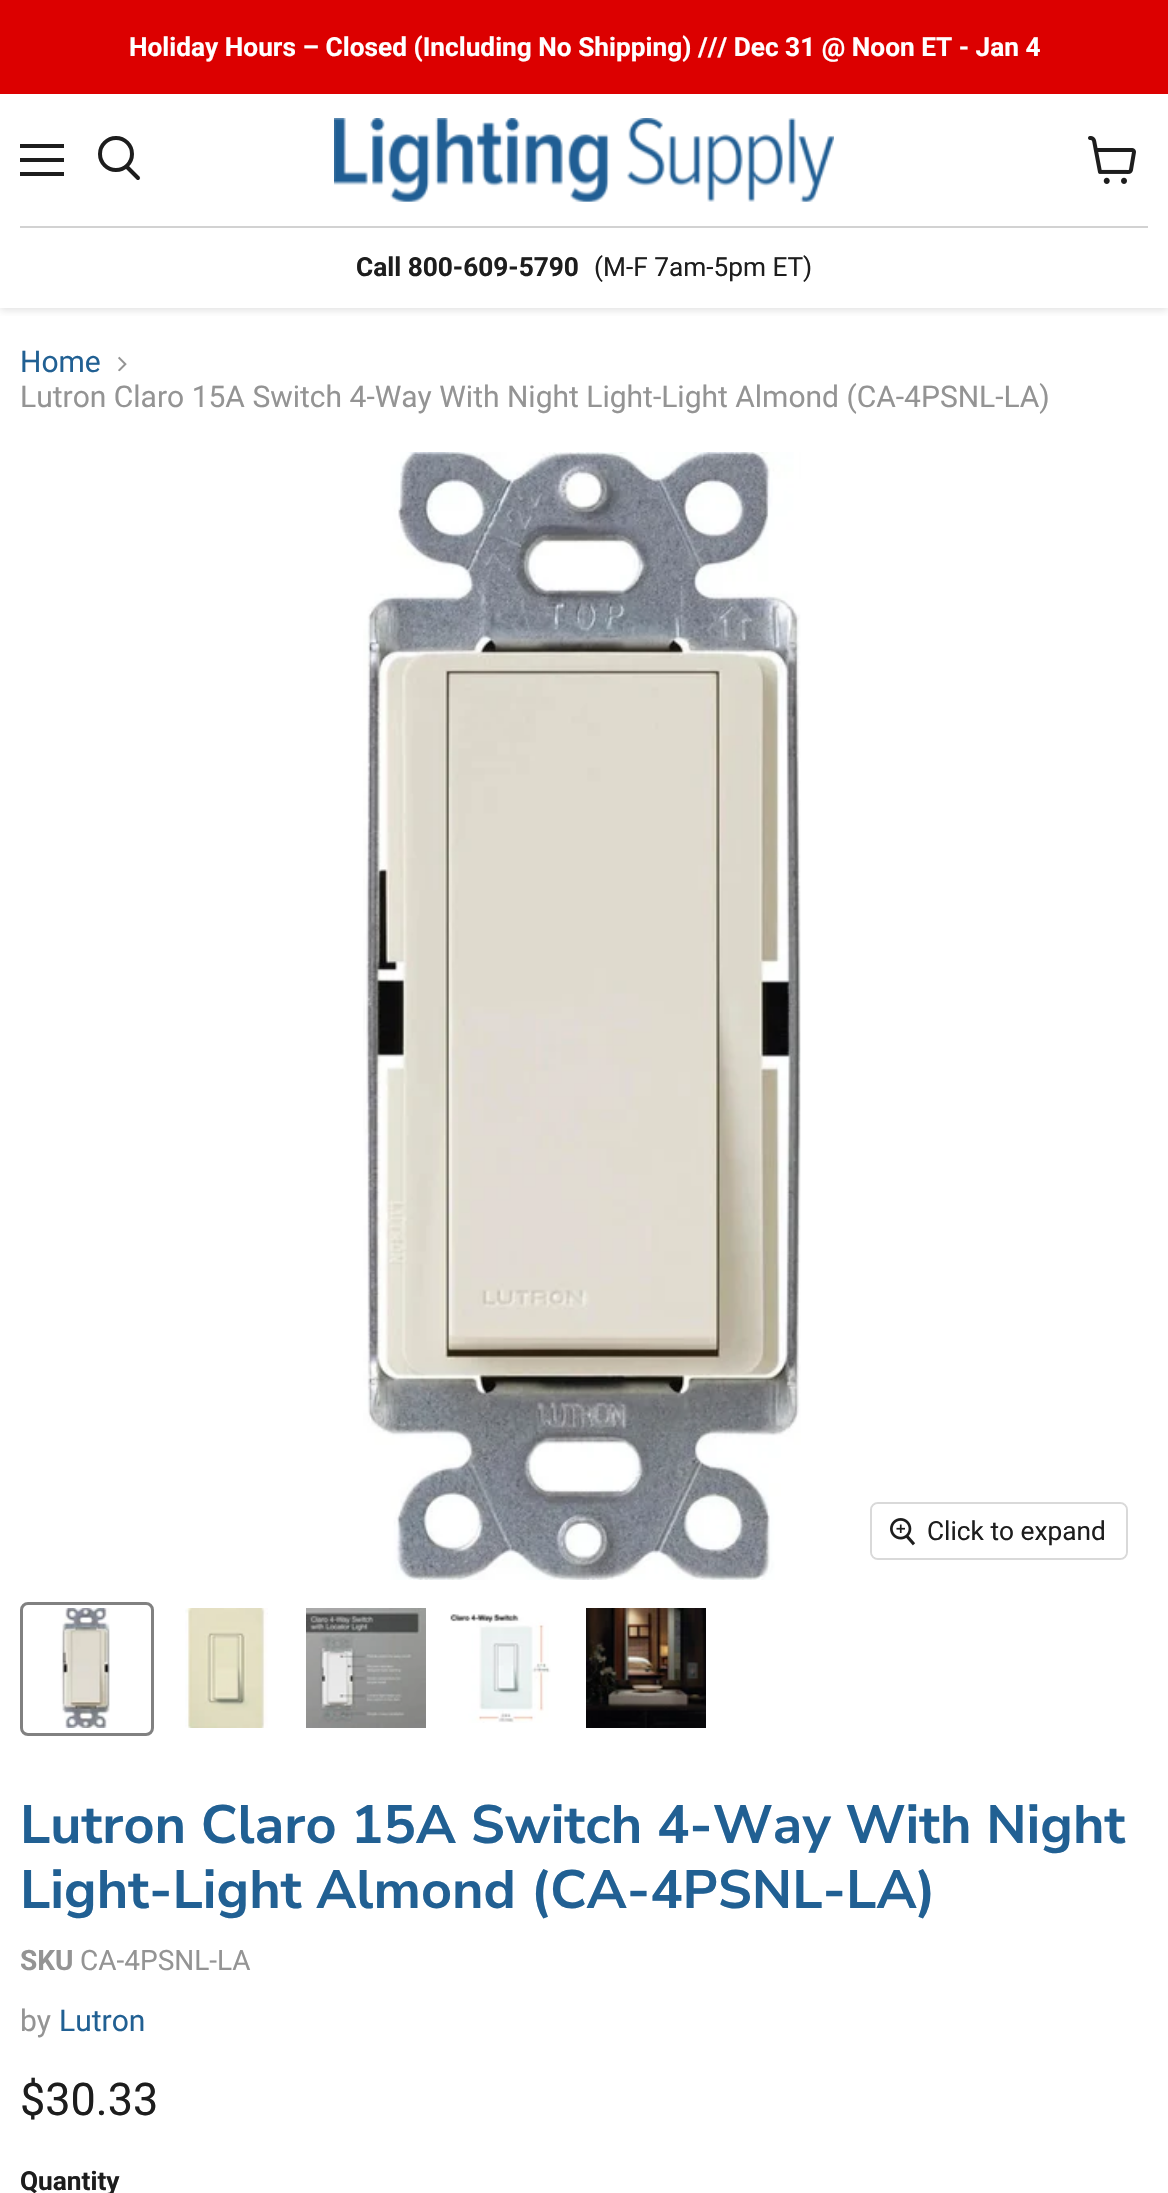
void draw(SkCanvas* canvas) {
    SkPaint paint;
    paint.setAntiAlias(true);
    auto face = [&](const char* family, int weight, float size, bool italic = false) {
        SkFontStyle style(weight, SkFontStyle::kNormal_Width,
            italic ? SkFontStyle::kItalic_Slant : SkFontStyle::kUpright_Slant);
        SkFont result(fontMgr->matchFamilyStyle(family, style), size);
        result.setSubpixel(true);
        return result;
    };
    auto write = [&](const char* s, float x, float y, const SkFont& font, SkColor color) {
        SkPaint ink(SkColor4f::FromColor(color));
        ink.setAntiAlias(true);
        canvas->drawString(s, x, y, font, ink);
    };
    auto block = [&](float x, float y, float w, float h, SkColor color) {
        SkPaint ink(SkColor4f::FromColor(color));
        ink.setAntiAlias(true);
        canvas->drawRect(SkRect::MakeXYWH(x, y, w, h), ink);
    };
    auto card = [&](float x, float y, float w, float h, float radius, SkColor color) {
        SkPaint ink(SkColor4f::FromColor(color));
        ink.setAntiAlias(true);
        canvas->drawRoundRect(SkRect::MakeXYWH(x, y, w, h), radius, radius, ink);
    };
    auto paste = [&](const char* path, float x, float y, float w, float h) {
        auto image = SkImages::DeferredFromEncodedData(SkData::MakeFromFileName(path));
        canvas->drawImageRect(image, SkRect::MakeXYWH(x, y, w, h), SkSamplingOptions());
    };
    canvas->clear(SK_ColorWHITE);
    canvas->save();
    canvas->clipRect(SkRect::MakeXYWH(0, 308, 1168, 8));
    paint.setColor(SkColorSetARGB(64, 128, 128, 128));
    paint.setMaskFilter(SkMaskFilter::MakeBlur(kNormal_SkBlurStyle, 4));
    canvas->drawRect(SkRect::MakeXYWH(0, 96, 1168, 214), paint);
    paint.setMaskFilter(nullptr);
    canvas->restore();
    block(0, 0, 1168, 94, SkColorSetRGB(220, 0, 0));
    auto kFont1 = face("Roboto", 700, 26.25f);
    write("Holiday Hours – Closed (Including No Shipping) /// Dec 31 @ Noon ET - Jan 4", 129, 56, kFont1, SK_ColorWHITE);
    block(20, 144, 44, 4, SkColorSetRGB(29, 29, 29));
    block(20, 158, 44, 4, SkColorSetRGB(29, 29, 29));
    block(20, 172, 44, 4, SkColorSetRGB(29, 29, 29));
    paint.setStyle(SkPaint::kStroke_Style);
    paint.setStrokeWidth(4);
    paint.setStrokeCap(SkPaint::kRound_Cap);
    paint.setColor(SkColorSetRGB(29, 29, 29));
    canvas->drawPath(SkPathBuilder().moveTo(138, 178).lineTo(127, 167).detach(), paint);
    paint.setStrokeCap(SkPaint::kButt_Cap);
    canvas->drawCircle(116, 154, 16, paint);
    paste("pic1.png", 1088, 136, 48, 48);
    paste("pic2.png", 334, 118, 500, 84);
    block(20, 226, 1128, 2, SkColorSetRGB(210, 210, 210));
    write("Call 800-609-5790", 356, 276, kFont1, SkColorSetRGB(29, 29, 29));
    auto kFont2 = face("Roboto", 400, 26.25f);
    write("(M-F 7am-5pm ET)", 594, 276, kFont2, SkColorSetRGB(29, 29, 29));
    auto kFont3 = face("Roboto", 400, 30);
    write("Home", 20, 372, kFont3, SkColorSetRGB(33, 96, 147));
    paste("pic3.png", 118, 356, 9, 16);
    write("Lutron Claro 15A Switch 4-Way With Night Light-Light Almond (CA-4PSNL-LA)", 20, 407, kFont3, SkColorSetRGB(148, 148, 148));
    paste("pic4.png", 363, 452, 438, 1128);
    paint.setStrokeWidth(2);
    paint.setColor(SkColorSetRGB(217, 217, 217));
    canvas->drawRoundRect(SkRect::MakeXYWH(871, 1503, 256, 56), 7, 7, paint);
    card(872, 1504, 254, 54, 6, SkColorSetARGB(230, 255, 255, 255));
    paste("pic5.png", 890, 1518, 26, 28);
    write("Click to expand", 927, 1540, kFont2, SkColorSetRGB(29, 29, 29));
    paint.setStrokeWidth(3);
    paint.setColor(SkColorSetRGB(129, 129, 129));
    canvas->drawRoundRect(SkRect::MakeXYWH(21.5f, 1603.5f, 131, 131), 6.5f, 6.5f, paint);
    paste("pic6.png", 60, 1608, 50, 120);
    paste("pic7.png", 185, 1608, 83, 120);
    paste("pic8.png", 306, 1608, 120, 120);
    paste("pic9.png", 450, 1614, 101, 109);
    paste("pic10.png", 586, 1608, 120, 120);
    auto kFont4 = face("Nunito Sans", 700, 54);
    write("Lutron Claro 15A Switch 4-Way With Night", 20, 1843, kFont4, SkColorSetRGB(33, 96, 147));
    write("Light-Light Almond (CA-4PSNL-LA)", 20, 1908, kFont4, SkColorSetRGB(33, 96, 147));
    auto kFont5 = face("Roboto", 700, 28);
    write("SKU", 20, 1970, kFont5, SkColorSetRGB(148, 148, 148));
    auto kFont6 = face("Roboto", 400, 28);
    write("CA-4PSNL-LA", 80, 1970, kFont6, SkColorSetRGB(148, 148, 148));
    write("by", 20, 2031, kFont3, SkColorSetRGB(148, 148, 148));
    write("Lutron", 59, 2031, kFont3, SkColorSetRGB(33, 96, 147));
    auto kFont7 = face("Roboto", 400, 45);
    write("$30.33", 20, 2115, kFont7, SkColorSetRGB(29, 29, 29));
    write("Quantity", 20, 2190, kFont1, SkColorSetRGB(29, 29, 29));
}
